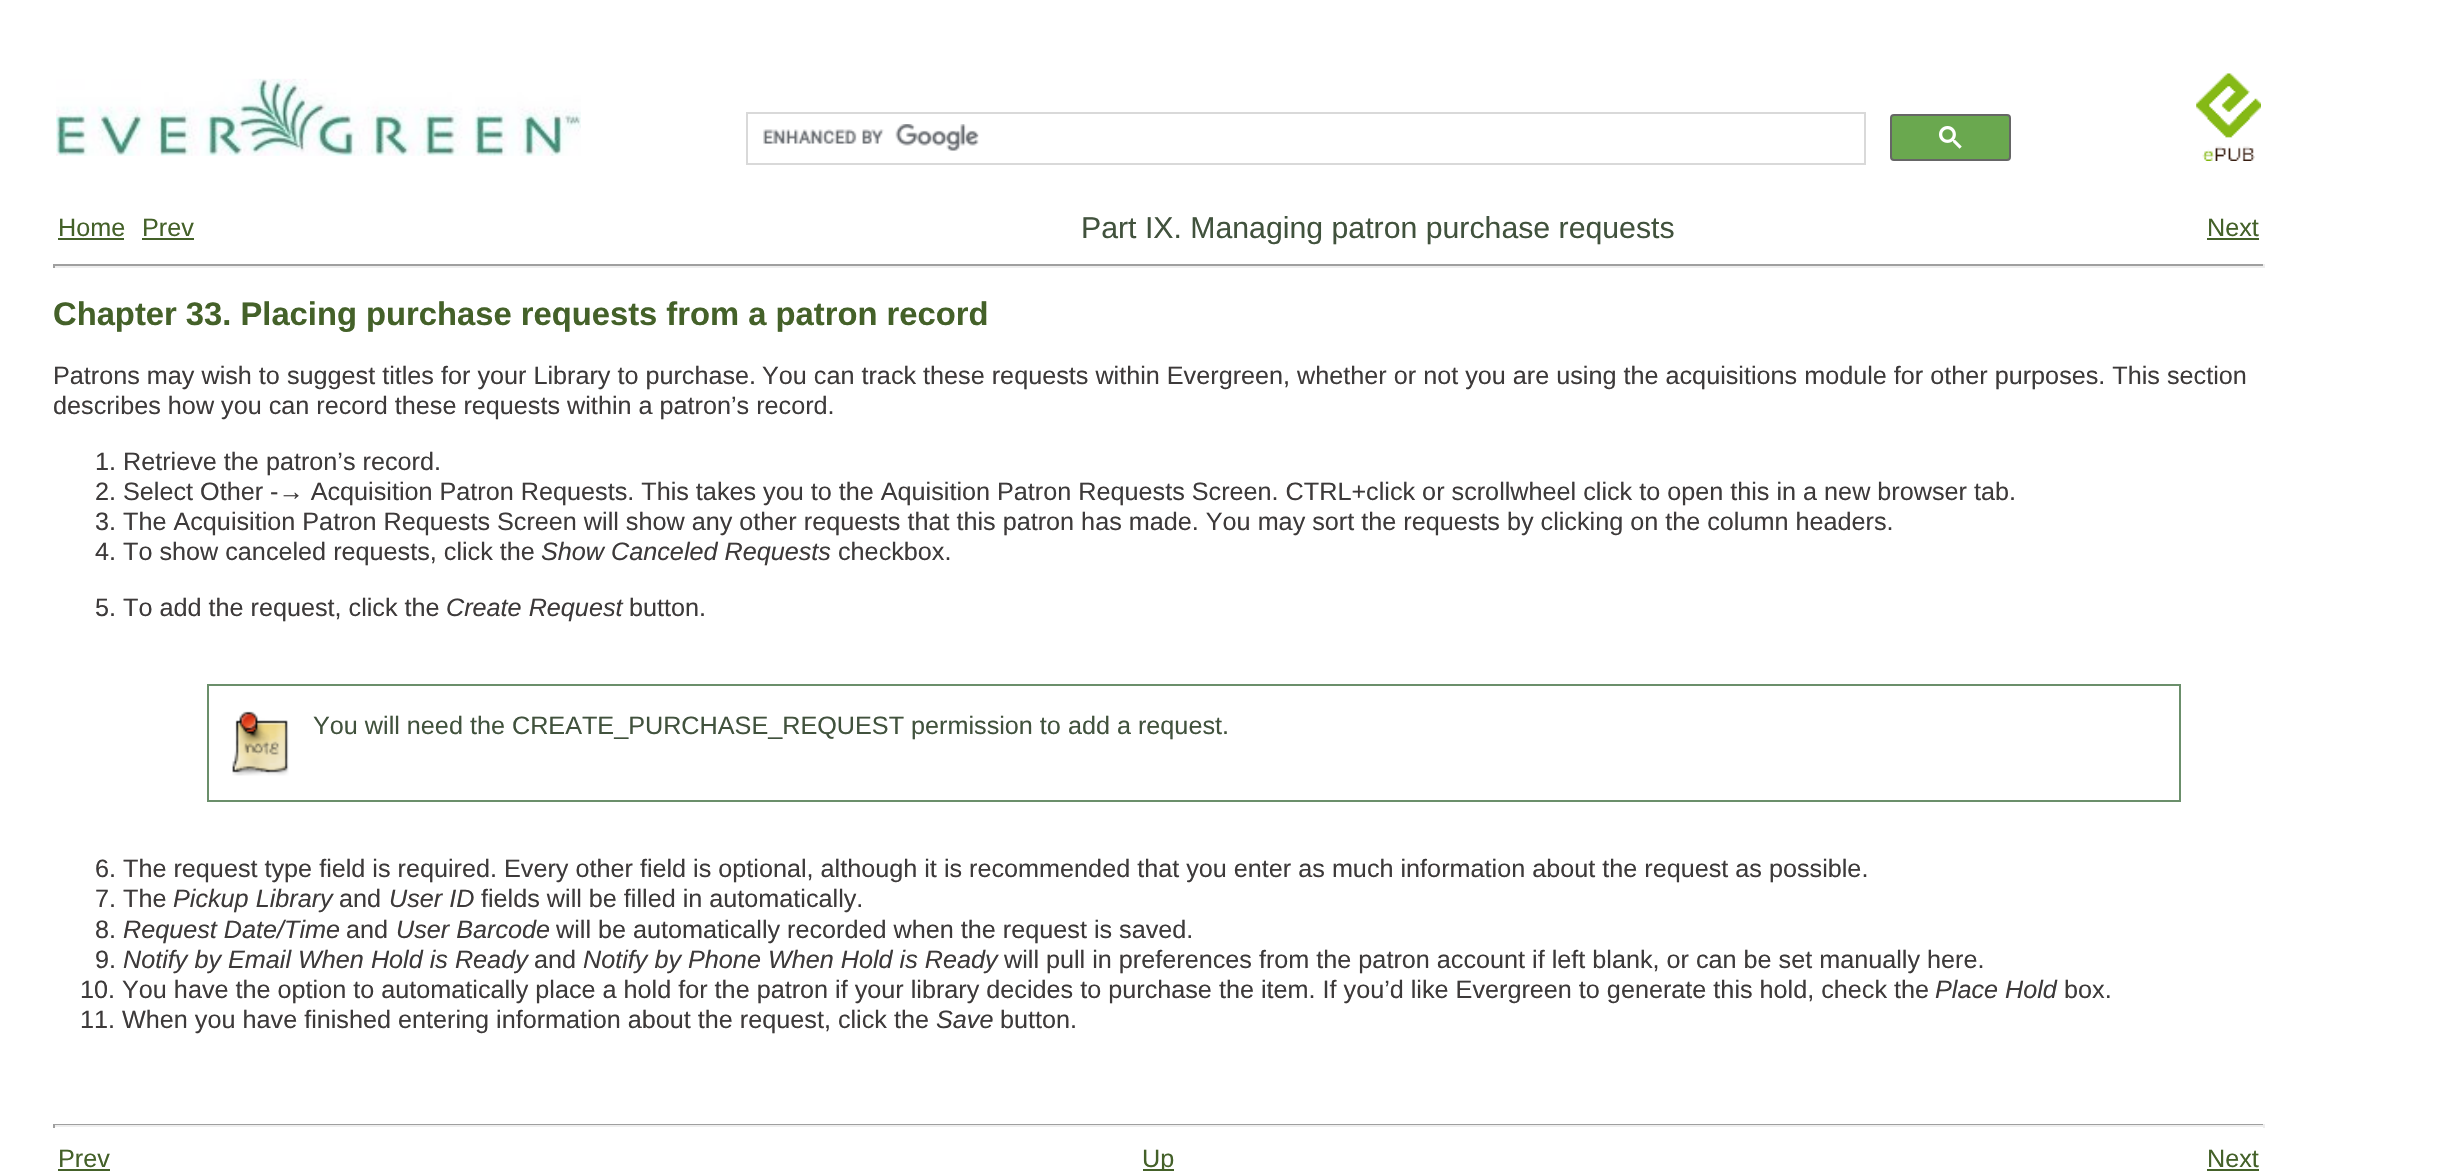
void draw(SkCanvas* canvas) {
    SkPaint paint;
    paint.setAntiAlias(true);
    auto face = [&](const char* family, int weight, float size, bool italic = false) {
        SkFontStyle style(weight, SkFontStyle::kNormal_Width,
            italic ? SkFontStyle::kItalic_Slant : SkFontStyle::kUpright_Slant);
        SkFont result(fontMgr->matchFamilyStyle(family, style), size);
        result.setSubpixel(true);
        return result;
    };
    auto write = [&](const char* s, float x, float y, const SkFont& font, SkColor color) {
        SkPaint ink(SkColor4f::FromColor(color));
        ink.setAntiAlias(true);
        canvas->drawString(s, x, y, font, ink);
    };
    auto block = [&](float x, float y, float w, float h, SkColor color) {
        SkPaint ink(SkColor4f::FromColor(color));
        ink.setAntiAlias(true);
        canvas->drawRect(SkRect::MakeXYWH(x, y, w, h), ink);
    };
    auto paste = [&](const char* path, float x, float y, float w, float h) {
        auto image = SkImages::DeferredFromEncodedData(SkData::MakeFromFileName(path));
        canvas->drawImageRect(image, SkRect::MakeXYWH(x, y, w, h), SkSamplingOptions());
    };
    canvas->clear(SK_ColorWHITE);
    paste("pic1.png", 56, 78, 525, 78);
    paint.setStyle(SkPaint::kStroke_Style);
    paint.setStrokeWidth(2);
    paint.setColor(SkColorSetRGB(217, 217, 217));
    canvas->drawRect(SkRect::MakeXYWH(747, 113, 1118, 51), paint);
    paste("pic2.png", 763, 124, 216, 27);
    paint.setStyle(SkPaint::kFill_Style);
    paint.setColor(SkColorSetRGB(106, 168, 79));
    canvas->drawRoundRect(SkRect::MakeXYWH(1891, 115, 119, 45), 3, 3, paint);
    paint.setStyle(SkPaint::kStroke_Style);
    paint.setColor(SkColorSetRGB(102, 102, 102));
    canvas->drawRoundRect(SkRect::MakeXYWH(1891, 115, 119, 45), 3, 3, paint);
    paste("pic3.png", 1939, 126, 23, 23);
    paste("pic4.png", 2196, 73, 65, 88);
    auto kFont1 = face("Liberation Sans", 400, 25.2f);
    write("Home", 58, 236, kFont1, SkColorSetRGB(68, 97, 41));
    block(58, 238, 66, 2, SkColorSetRGB(68, 97, 41));
    write("Prev", 142, 236, kFont1, SkColorSetRGB(68, 97, 41));
    block(142, 238, 52, 2, SkColorSetRGB(68, 97, 41));
    auto kFont2 = face("Liberation Sans", 400, 30.25f);
    write("Part IX. Managing patron purchase requests", 1081, 238, kFont2, SkColorSetRGB(65, 82, 61));
    write("Next", 2207, 236, kFont1, SkColorSetRGB(68, 97, 41));
    block(2207, 238, 52, 2, SkColorSetRGB(68, 97, 41));
    block(53, 264, 2212, 2, SkColorSetRGB(159, 159, 159));
    block(2263, 264, 2, 4, SkColorSetRGB(238, 238, 238));
    block(53, 266, 2212, 2, SkColorSetRGB(238, 238, 238));
    block(53, 264, 2, 4, SkColorSetRGB(159, 159, 159));
    auto kFont3 = face("Liberation Sans", 700, 32.75f);
    write("Chapter 33. Placing purchase requests from a patron record", 53, 325, kFont3, SkColorSetRGB(68, 97, 41));
    write("Patrons may wish to suggest titles for your Library to purchase.", 53, 384, kFont1, SkColorSetRGB(61, 58, 58));
    write("You can track these requests within Evergreen, whether or not you are using the acquisitions module for other purposes. This section", 762, 384, kFont1, SkColorSetRGB(61, 58, 58));
    write("describes how you can record these requests within a patron’s record.", 53, 414, kFont1, SkColorSetRGB(61, 58, 58));
    write("1. Retrieve the patron’s record.", 95, 470, kFont1, SkColorSetRGB(61, 58, 58));
    write("2. Select Other -→ Acquisition Patron Requests. This takes you to the Aquisition Patron Requests Screen. CTRL+click or scrollwheel click to open this in a new browser tab.", 95, 500, kFont1, SkColorSetRGB(61, 58, 58));
    write("3. The Acquisition Patron Requests Screen will show any other requests that this patron has made. You may sort the requests by clicking on the column headers.", 95, 530, kFont1, SkColorSetRGB(61, 58, 58));
    write("4. To show canceled requests, click the", 95, 560, kFont1, SkColorSetRGB(61, 58, 58));
    auto kFont4 = face("Liberation Sans", 400, 25.2f, true);
    write("Show Canceled Requests", 541, 560, kFont4, SkColorSetRGB(61, 58, 58));
    write("checkbox.", 838, 560, kFont1, SkColorSetRGB(61, 58, 58));
    write("5. To add the request, click the", 95, 616, kFont1, SkColorSetRGB(61, 58, 58));
    write("Create Request", 446, 616, kFont4, SkColorSetRGB(61, 58, 58));
    write("button.", 629, 616, kFont1, SkColorSetRGB(61, 58, 58));
    paste("pic5.png", 232, 711, 57, 65);
    paint.setColor(SkColorSetRGB(107, 143, 107));
    canvas->drawRect(SkRect::MakeXYWH(208, 685, 1972, 116), paint);
    write("You will need the CREATE_PURCHASE_REQUEST permission to add a request.", 313, 734, kFont1, SkColorSetRGB(65, 82, 61));
    write("6. The request type field is required. Every other field is optional, although it is recommended that you enter as much information about the request as possible.", 95, 877, kFont1, SkColorSetRGB(61, 58, 58));
    write("7. The", 95, 907, kFont1, SkColorSetRGB(61, 58, 58));
    write("Pickup Library", 173, 907, kFont4, SkColorSetRGB(61, 58, 58));
    write("and", 339, 907, kFont1, SkColorSetRGB(61, 58, 58));
    write("User ID", 389, 907, kFont4, SkColorSetRGB(61, 58, 58));
    write("fields will be filled in automatically.", 481, 907, kFont1, SkColorSetRGB(61, 58, 58));
    write("8.", 95, 938, kFont1, SkColorSetRGB(61, 58, 58));
    write("Request Date/Time", 123, 938, kFont4, SkColorSetRGB(61, 58, 58));
    write("and", 346, 938, kFont1, SkColorSetRGB(61, 58, 58));
    write("User Barcode", 396, 938, kFont4, SkColorSetRGB(61, 58, 58));
    write("will be automatically recorded when the request is saved.", 556, 938, kFont1, SkColorSetRGB(61, 58, 58));
    write("9.", 95, 968, kFont1, SkColorSetRGB(61, 58, 58));
    write("Notify by Email When Hold is Ready", 123, 968, kFont4, SkColorSetRGB(61, 58, 58));
    write("and", 534, 968, kFont1, SkColorSetRGB(61, 58, 58));
    write("Notify by Phone When Hold is Ready", 583, 968, kFont4, SkColorSetRGB(61, 58, 58));
    write("will pull in preferences from the patron account if left blank, or can be set manually here.", 1004, 968, kFont1, SkColorSetRGB(61, 58, 58));
    write("10. You have the option to automatically place a hold for the patron if your library decides to purchase the item. If you’d like Evergreen to generate this hold, check the", 80, 998, kFont1, SkColorSetRGB(61, 58, 58));
    write("Place Hold", 1935, 998, kFont4, SkColorSetRGB(61, 58, 58));
    write("box.", 2064, 998, kFont1, SkColorSetRGB(61, 58, 58));
    write("11. When you have finished entering information about the request, click the", 80, 1028, kFont1, SkColorSetRGB(61, 58, 58));
    write("Save", 936, 1028, kFont4, SkColorSetRGB(61, 58, 58));
    write("button.", 1000, 1028, kFont1, SkColorSetRGB(61, 58, 58));
    block(53, 1124, 2212, 1, SkColorSetRGB(159, 159, 159));
    block(2263, 1124, 2, 4, SkColorSetRGB(238, 238, 238));
    block(53, 1125, 2212, 2, SkColorSetRGB(238, 238, 238));
    block(53, 1124, 2, 4, SkColorSetRGB(159, 159, 159));
    write("Prev", 58, 1167, kFont1, SkColorSetRGB(68, 97, 41));
    block(58, 1169, 52, 2, SkColorSetRGB(68, 97, 41));
    block(1143, 1169, 31, 2, SkColorSetRGB(68, 97, 41));
    write("Up", 1142, 1167, kFont1, SkColorSetRGB(68, 97, 41));
    write("Next", 2207, 1167, kFont1, SkColorSetRGB(68, 97, 41));
    block(2207, 1169, 52, 2, SkColorSetRGB(68, 97, 41));
}
